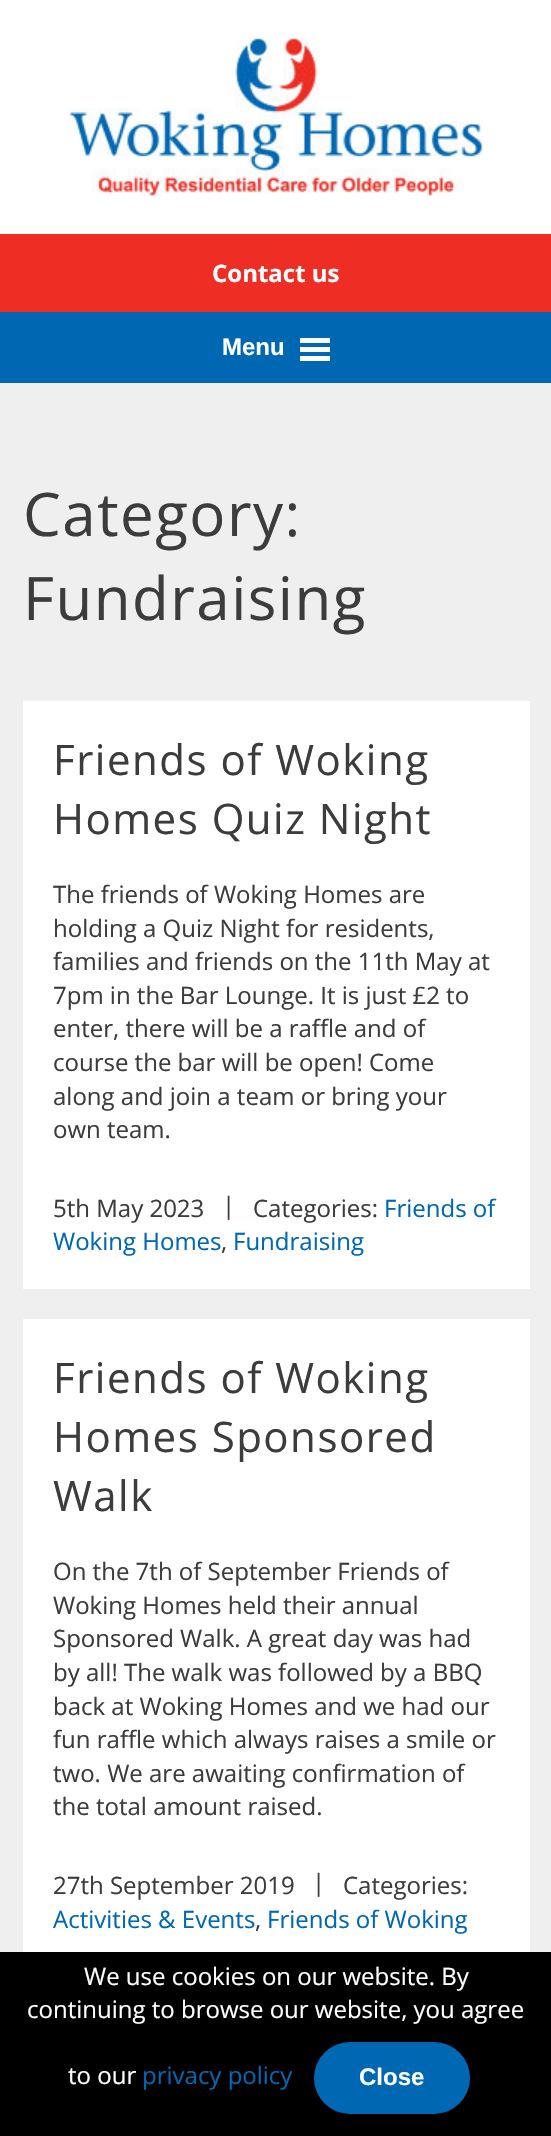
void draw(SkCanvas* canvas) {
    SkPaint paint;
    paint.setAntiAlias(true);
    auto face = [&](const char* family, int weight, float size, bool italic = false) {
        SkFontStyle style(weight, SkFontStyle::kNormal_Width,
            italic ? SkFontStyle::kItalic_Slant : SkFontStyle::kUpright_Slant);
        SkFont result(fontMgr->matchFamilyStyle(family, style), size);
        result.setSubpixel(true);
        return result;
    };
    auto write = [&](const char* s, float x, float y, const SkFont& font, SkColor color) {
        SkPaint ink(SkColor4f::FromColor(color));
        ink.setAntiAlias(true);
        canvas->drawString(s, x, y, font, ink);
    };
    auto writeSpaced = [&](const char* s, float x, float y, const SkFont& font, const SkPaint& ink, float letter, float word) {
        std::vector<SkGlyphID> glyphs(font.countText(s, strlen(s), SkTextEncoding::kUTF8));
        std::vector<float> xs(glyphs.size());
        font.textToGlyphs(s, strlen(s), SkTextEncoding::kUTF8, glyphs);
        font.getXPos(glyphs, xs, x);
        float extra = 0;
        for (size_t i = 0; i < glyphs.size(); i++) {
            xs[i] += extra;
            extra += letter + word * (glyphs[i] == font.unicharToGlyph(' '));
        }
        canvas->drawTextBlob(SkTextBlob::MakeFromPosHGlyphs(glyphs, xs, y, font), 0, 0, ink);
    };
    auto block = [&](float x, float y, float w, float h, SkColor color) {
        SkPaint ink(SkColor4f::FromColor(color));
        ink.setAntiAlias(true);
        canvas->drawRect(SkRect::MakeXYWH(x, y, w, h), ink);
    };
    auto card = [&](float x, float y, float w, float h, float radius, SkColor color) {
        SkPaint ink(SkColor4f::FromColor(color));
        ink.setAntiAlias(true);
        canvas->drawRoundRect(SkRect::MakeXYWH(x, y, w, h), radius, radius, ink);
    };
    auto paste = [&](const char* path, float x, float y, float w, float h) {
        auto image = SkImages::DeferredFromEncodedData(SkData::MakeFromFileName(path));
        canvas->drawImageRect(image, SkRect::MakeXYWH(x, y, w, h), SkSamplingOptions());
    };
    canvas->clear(SK_ColorWHITE);
    paste("pic1.png", 69, 37, 414, 160);
    block(0, 234, 551, 78, SkColorSetRGB(238, 46, 36));
    auto kFont1 = face("Open Sans", 700, 24);
    write("Contact us", 212, 282, kFont1, SK_ColorWHITE);
    block(0, 312, 551, 71, SkColorSetRGB(0, 104, 179));
    auto kFont2 = face("Liberation Sans", 700, 24);
    write("Menu", 222, 355, kFont2, SK_ColorWHITE);
    block(300, 338, 30, 5, SK_ColorWHITE);
    block(300, 356, 30, 5, SK_ColorWHITE);
    block(300, 347, 30, 5, SK_ColorWHITE);
    block(0, 383, 551, 1569, SkColorSetRGB(239, 239, 239));
    auto kFont3 = face("Open Sans", 400, 60);
    paint.setColor(SkColorSetRGB(60, 60, 60));
    writeSpaced("Category:", 23, 536, kFont3, paint, 1.5f, 0);
    writeSpaced("Fundraising", 23, 620, kFont3, paint, 1.5f, 0);
    block(23, 701, 507, 588, SK_ColorWHITE);
    auto kFont4 = face("Open Sans", 400, 42);
    writeSpaced("Friends of Woking", 53, 775, kFont4, paint, 1.5f, 0);
    writeSpaced("Homes Quiz Night", 53, 834, kFont4, paint, 1.5f, 0);
    auto kFont5 = face("Open Sans", 400, 24);
    write("The friends of Woking Homes are", 53, 903, kFont5, SkColorSetRGB(60, 60, 60));
    write("holding a Quiz Night for residents,", 53, 937, kFont5, SkColorSetRGB(60, 60, 60));
    write("families and friends on the 11th May at", 53, 970, kFont5, SkColorSetRGB(60, 60, 60));
    write("7pm in the Bar Lounge. It is just £2 to", 53, 1004, kFont5, SkColorSetRGB(60, 60, 60));
    write("enter, there will be a raffle and of", 53, 1037, kFont5, SkColorSetRGB(60, 60, 60));
    write("course the bar will be open! Come", 53, 1071, kFont5, SkColorSetRGB(60, 60, 60));
    write("along and join a team or bring your", 53, 1105, kFont5, SkColorSetRGB(60, 60, 60));
    write("own team.", 53, 1138, kFont5, SkColorSetRGB(60, 60, 60));
    write("5th May 2023", 53, 1217, kFont5, SkColorSetRGB(60, 60, 60));
    write("|", 222, 1214, kFont5, SkColorSetRGB(60, 60, 60));
    write("Categories:", 253, 1217, kFont5, SkColorSetRGB(60, 60, 60));
    write("Friends of", 384, 1217, kFont5, SkColorSetRGB(0, 104, 179));
    write("Woking Homes", 53, 1250, kFont5, SkColorSetRGB(0, 104, 179));
    write(",", 221, 1250, kFont5, SkColorSetRGB(60, 60, 60));
    write("Fundraising", 233, 1250, kFont5, SkColorSetRGB(0, 104, 179));
    block(23, 1319, 507, 633, SK_ColorWHITE);
    writeSpaced("Friends of Woking", 53, 1393, kFont4, paint, 1.5f, 0);
    writeSpaced("Homes Sponsored", 53, 1452, kFont4, paint, 1.5f, 0);
    writeSpaced("Walk", 53, 1511, kFont4, paint, 1.5f, 0);
    write("On the 7th of September Friends of", 53, 1580, kFont5, SkColorSetRGB(60, 60, 60));
    write("Woking Homes held their annual", 53, 1614, kFont5, SkColorSetRGB(60, 60, 60));
    write("Sponsored Walk. A great day was had", 53, 1647, kFont5, SkColorSetRGB(60, 60, 60));
    write("by all! The walk was followed by a BBQ", 53, 1681, kFont5, SkColorSetRGB(60, 60, 60));
    write("back at Woking Homes and we had our", 53, 1715, kFont5, SkColorSetRGB(60, 60, 60));
    write("fun raffle which always raises a smile or", 53, 1748, kFont5, SkColorSetRGB(60, 60, 60));
    write("two. We are awaiting confirmation of", 53, 1782, kFont5, SkColorSetRGB(60, 60, 60));
    write("the total amount raised.", 53, 1815, kFont5, SkColorSetRGB(60, 60, 60));
    write("27th September 2019", 53, 1894, kFont5, SkColorSetRGB(60, 60, 60));
    write("|", 312, 1891, kFont5, SkColorSetRGB(60, 60, 60));
    write("Categories:", 343, 1894, kFont5, SkColorSetRGB(60, 60, 60));
    write("Activities & Events", 53, 1928, kFont5, SkColorSetRGB(0, 104, 179));
    write(",", 255, 1928, kFont5, SkColorSetRGB(60, 60, 60));
    write("Friends of Woking", 267, 1928, kFont5, SkColorSetRGB(0, 104, 179));
    block(0, 1952, 551, 184, SK_ColorBLACK);
    write("We use cookies on our website. By", 84, 1985, kFont5, SK_ColorWHITE);
    write("continuing to browse our website, you agree", 27, 2018, kFont5, SK_ColorWHITE);
    write("to our", 68, 2084, kFont5, SK_ColorWHITE);
    write("privacy policy", 142, 2084, kFont5, SkColorSetRGB(0, 104, 179));
    card(314, 2042, 156, 72, 36, SkColorSetRGB(0, 104, 179));
    write("Close", 359, 2085, kFont2, SK_ColorWHITE);
}
